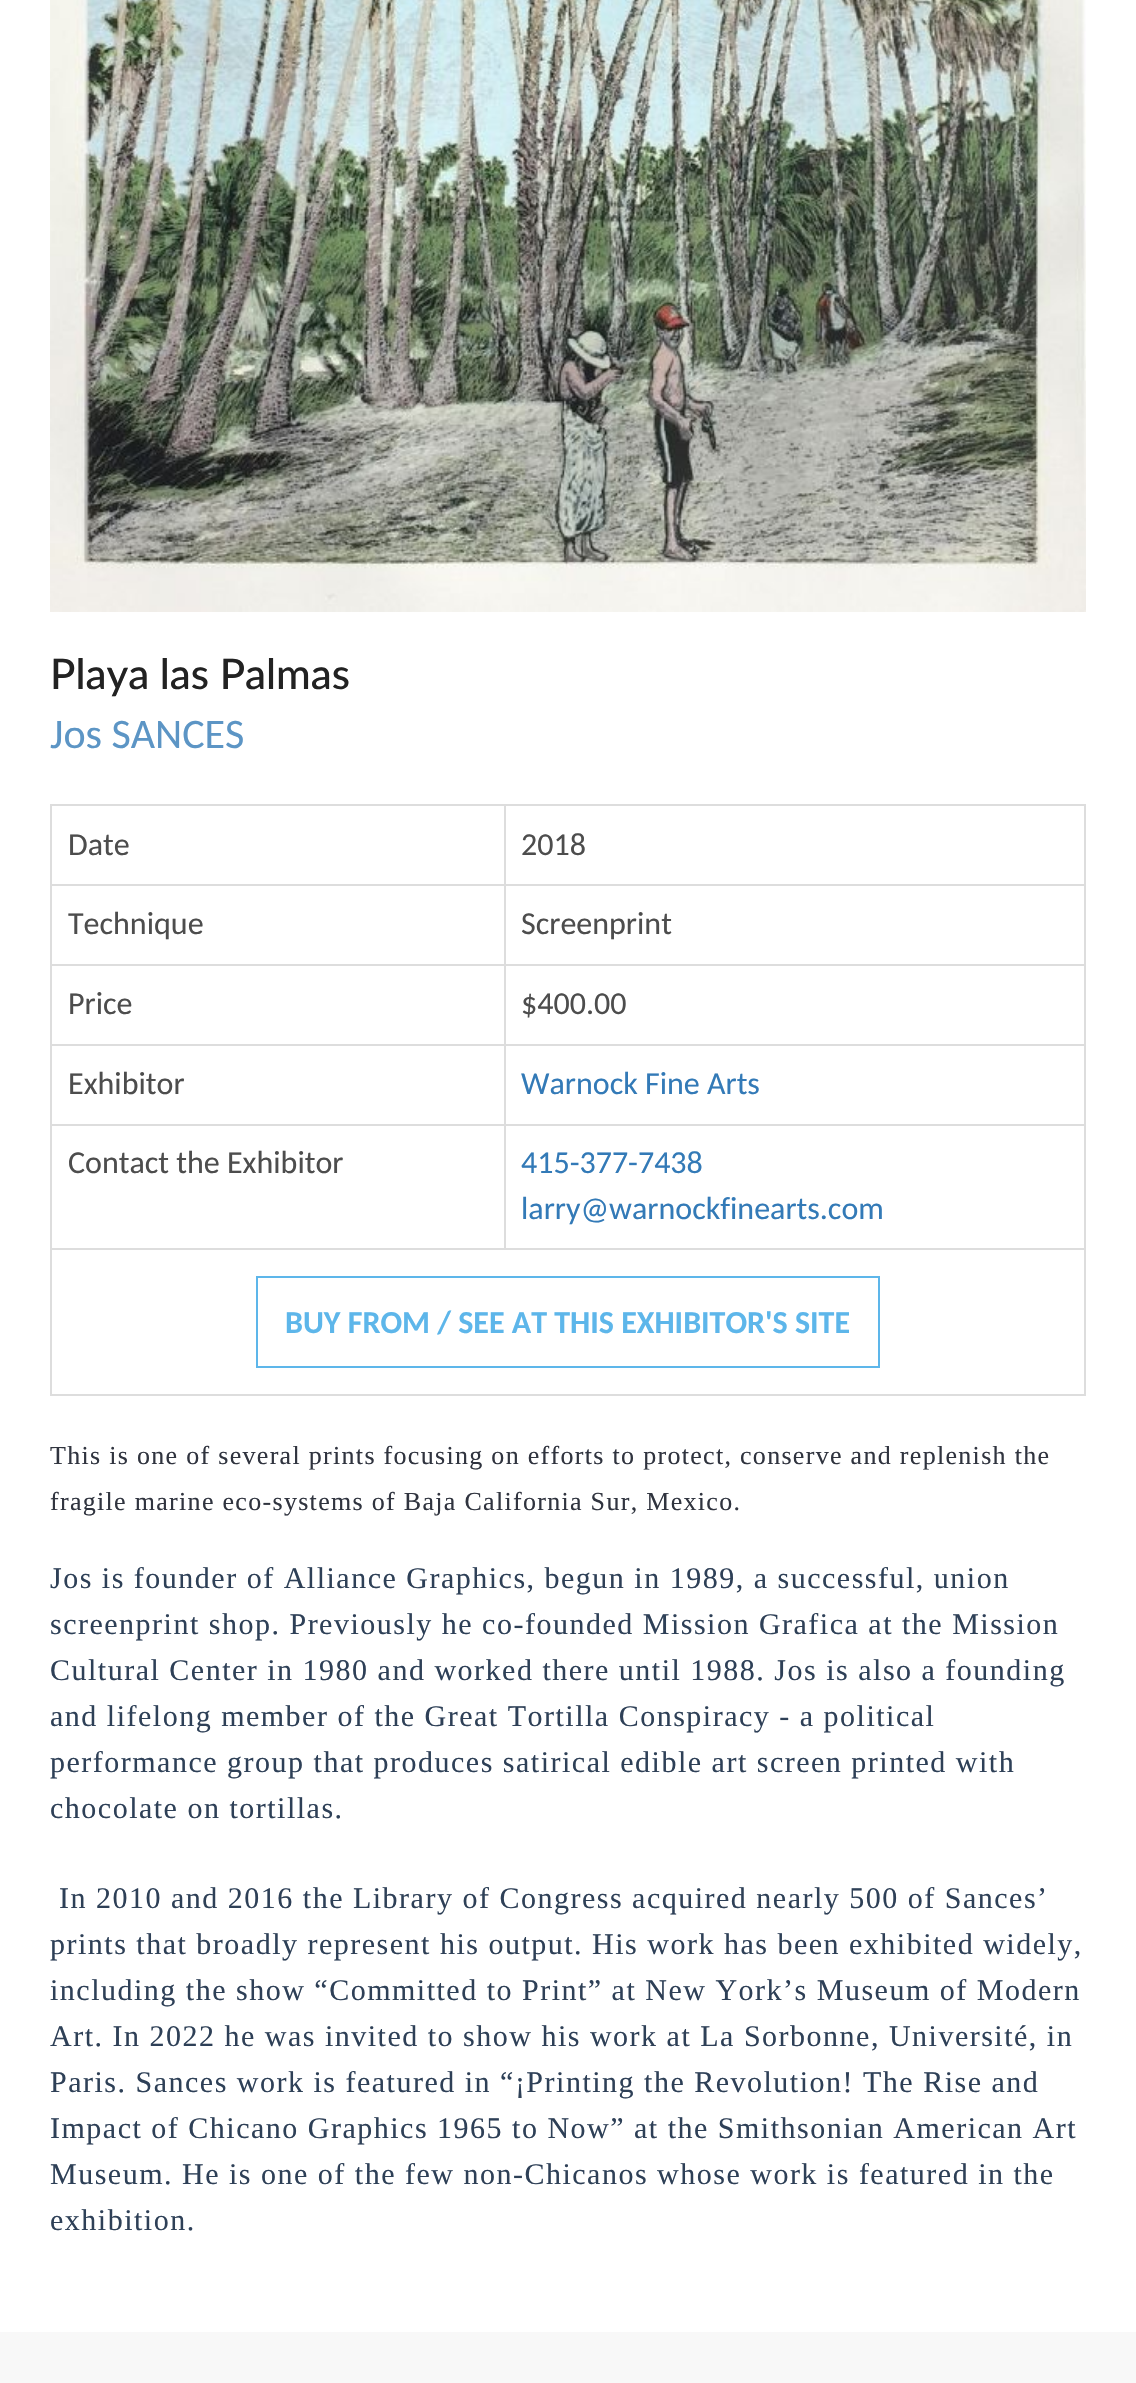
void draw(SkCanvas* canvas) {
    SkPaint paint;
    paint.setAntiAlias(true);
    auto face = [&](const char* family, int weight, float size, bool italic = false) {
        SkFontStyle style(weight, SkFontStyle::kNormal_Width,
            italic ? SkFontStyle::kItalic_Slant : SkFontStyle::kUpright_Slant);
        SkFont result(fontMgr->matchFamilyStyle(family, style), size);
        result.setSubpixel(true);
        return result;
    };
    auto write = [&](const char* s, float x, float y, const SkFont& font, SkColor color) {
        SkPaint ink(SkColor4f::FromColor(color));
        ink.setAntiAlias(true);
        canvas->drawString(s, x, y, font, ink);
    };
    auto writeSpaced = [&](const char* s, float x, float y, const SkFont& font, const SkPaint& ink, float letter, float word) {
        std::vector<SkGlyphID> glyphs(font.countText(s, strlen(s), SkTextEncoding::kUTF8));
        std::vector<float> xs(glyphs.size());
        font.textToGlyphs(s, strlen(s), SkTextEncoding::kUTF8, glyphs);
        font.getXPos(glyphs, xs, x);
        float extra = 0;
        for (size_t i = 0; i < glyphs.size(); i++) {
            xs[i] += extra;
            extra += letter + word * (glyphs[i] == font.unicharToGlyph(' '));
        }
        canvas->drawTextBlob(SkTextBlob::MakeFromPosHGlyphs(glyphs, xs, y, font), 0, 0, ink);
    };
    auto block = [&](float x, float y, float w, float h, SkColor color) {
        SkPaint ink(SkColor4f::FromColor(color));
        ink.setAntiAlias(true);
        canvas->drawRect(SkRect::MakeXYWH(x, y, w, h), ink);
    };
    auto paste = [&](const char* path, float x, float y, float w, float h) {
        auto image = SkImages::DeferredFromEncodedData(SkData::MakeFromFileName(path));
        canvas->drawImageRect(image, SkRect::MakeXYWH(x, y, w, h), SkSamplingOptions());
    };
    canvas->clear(SK_ColorWHITE);
    paste("pic1.png", 50, 0, 1036, 612);
    auto kFont1 = face("Lato", 500, 42);
    write("Playa las Palmas", 50, 689, kFont1, SkColorSetRGB(34, 34, 34));
    auto kFont2 = face("Carlito", 400, 42);
    write("Jos SANCES", 50, 748, kFont2, SkColorSetRGB(92, 149, 197));
    block(50, 804, 1036, 2, SkColorSetRGB(221, 221, 221));
    block(1084, 804, 2, 592, SkColorSetRGB(221, 221, 221));
    block(50, 1394, 1036, 2, SkColorSetRGB(221, 221, 221));
    block(50, 804, 2, 592, SkColorSetRGB(221, 221, 221));
    auto kFont3 = face("Carlito", 400, 32);
    write("Date", 68, 855, kFont3, SkColorSetRGB(77, 77, 77));
    block(504, 884, 582, 2, SkColorSetRGB(221, 221, 221));
    block(504, 964, 582, 2, SkColorSetRGB(221, 221, 221));
    block(504, 1044, 582, 2, SkColorSetRGB(221, 221, 221));
    block(504, 1124, 582, 2, SkColorSetRGB(221, 221, 221));
    block(50, 1248, 1036, 2, SkColorSetRGB(221, 221, 221));
    block(504, 1124, 2, 126, SkColorSetRGB(221, 221, 221));
    block(50, 1124, 456, 2, SkColorSetRGB(221, 221, 221));
    block(504, 1044, 2, 82, SkColorSetRGB(221, 221, 221));
    block(50, 1044, 456, 2, SkColorSetRGB(221, 221, 221));
    block(504, 964, 2, 82, SkColorSetRGB(221, 221, 221));
    block(50, 964, 456, 2, SkColorSetRGB(221, 221, 221));
    block(504, 884, 2, 82, SkColorSetRGB(221, 221, 221));
    block(50, 884, 456, 2, SkColorSetRGB(221, 221, 221));
    block(504, 804, 2, 82, SkColorSetRGB(221, 221, 221));
    write("2018", 521, 855, kFont3, SkColorSetRGB(77, 77, 77));
    write("Technique", 68, 934, kFont3, SkColorSetRGB(77, 77, 77));
    write("Screenprint", 521, 934, kFont3, SkColorSetRGB(77, 77, 77));
    write("Price", 68, 1014, kFont3, SkColorSetRGB(77, 77, 77));
    write("$400.00", 521, 1014, kFont3, SkColorSetRGB(77, 77, 77));
    write("Exhibitor", 68, 1094, kFont3, SkColorSetRGB(77, 77, 77));
    write("Warnock Fine Arts", 521, 1094, kFont3, SkColorSetRGB(51, 122, 183));
    write("Contact the Exhibitor", 68, 1173, kFont3, SkColorSetRGB(77, 77, 77));
    write("415-377-7438", 521, 1173, kFont3, SkColorSetRGB(51, 122, 183));
    write("larry@warnockfinearts.com", 521, 1219, kFont3, SkColorSetRGB(51, 122, 183));
    paint.setStyle(SkPaint::kStroke_Style);
    paint.setStrokeWidth(2);
    paint.setColor(SkColorSetRGB(93, 182, 234));
    canvas->drawRect(SkRect::MakeXYWH(257, 1277, 622, 90), paint);
    auto kFont4 = face("Carlito", 700, 32);
    write("BUY FROM / SEE AT THIS EXHIBITOR'S SITE", 285, 1333, kFont4, SkColorSetRGB(93, 182, 234));
    auto kFont5 = face("Liberation Serif", 400, 26);
    paint.setStyle(SkPaint::kFill_Style);
    paint.setColor(SkColorSetRGB(48, 52, 63));
    writeSpaced("This is one of several prints focusing on efforts to protect, conserve and replenish the", 50, 1464, kFont5, paint, 1.3f, 0);
    writeSpaced("fragile marine eco-systems of Baja California Sur, Mexico.", 50, 1510, kFont5, paint, 1.3f, 0);
    auto kFont6 = face("Liberation Serif", 400, 30);
    paint.setColor(SkColorSetRGB(46, 64, 87));
    writeSpaced("Jos is founder of Alliance Graphics, begun in 1989, a successful, union", 50, 1588, kFont6, paint, 1.5f, 0);
    writeSpaced("screenprint shop. Previously he co-founded Mission Grafica at the Mission", 50, 1634, kFont6, paint, 1.5f, 0);
    writeSpaced("Cultural Center in 1980 and worked there until 1988. Jos is also a founding", 50, 1680, kFont6, paint, 1.5f, 0);
    writeSpaced("and lifelong member of the Great Tortilla Conspiracy - a political", 50, 1726, kFont6, paint, 1.5f, 0);
    writeSpaced("performance group that produces satirical edible art screen printed with", 50, 1772, kFont6, paint, 1.5f, 0);
    writeSpaced("chocolate on tortillas.", 50, 1818, kFont6, paint, 1.5f, 0);
    writeSpaced("In 2010 and 2016 the Library of Congress acquired nearly 500 of Sances’", 59, 1908, kFont6, paint, 1.5f, 0);
    writeSpaced("prints that broadly represent his output. His work has been exhibited widely,", 50, 1954, kFont6, paint, 1.5f, 0);
    writeSpaced("including the show “Committed to Print” at New York’s Museum of Modern", 50, 2000, kFont6, paint, 1.5f, 0);
    writeSpaced("Art. In 2022 he was invited to show his work at La Sorbonne, Université, in", 50, 2046, kFont6, paint, 1.5f, 0);
    writeSpaced("Paris. Sances work is featured in “¡Printing the Revolution! The Rise and", 50, 2092, kFont6, paint, 1.5f, 0);
    writeSpaced("Impact of Chicano Graphics 1965 to Now” at the Smithsonian American Art", 50, 2138, kFont6, paint, 1.5f, 0);
    writeSpaced("Museum. He is one of the few non-Chicanos whose work is featured in the", 50, 2184, kFont6, paint, 1.5f, 0);
    writeSpaced("exhibition.", 50, 2230, kFont6, paint, 1.5f, 0);
    block(0, 2332, 1136, 51, SkColorSetRGB(248, 248, 248));
}
